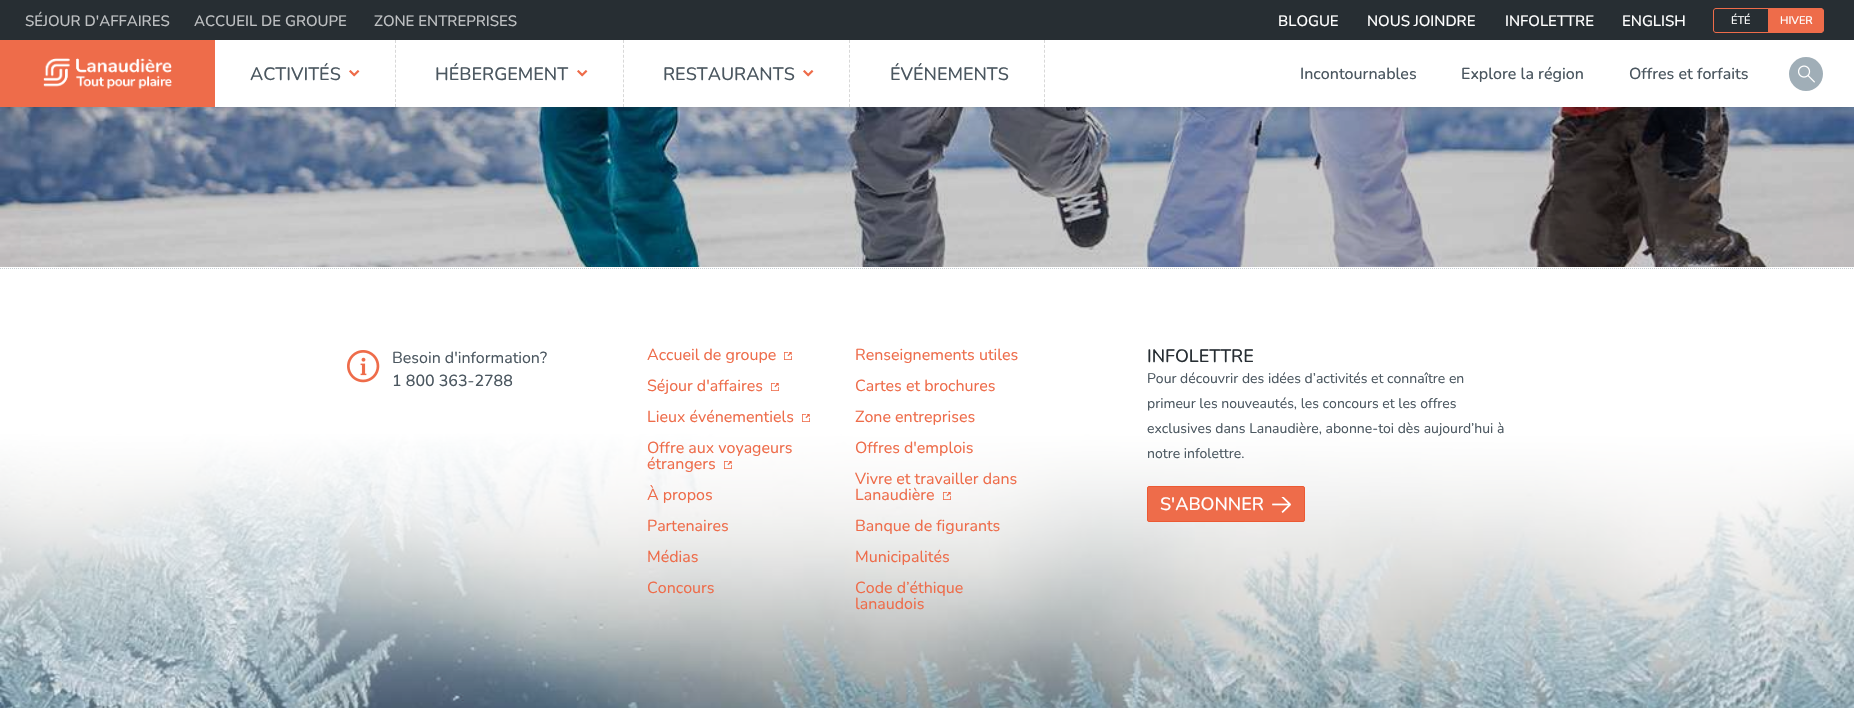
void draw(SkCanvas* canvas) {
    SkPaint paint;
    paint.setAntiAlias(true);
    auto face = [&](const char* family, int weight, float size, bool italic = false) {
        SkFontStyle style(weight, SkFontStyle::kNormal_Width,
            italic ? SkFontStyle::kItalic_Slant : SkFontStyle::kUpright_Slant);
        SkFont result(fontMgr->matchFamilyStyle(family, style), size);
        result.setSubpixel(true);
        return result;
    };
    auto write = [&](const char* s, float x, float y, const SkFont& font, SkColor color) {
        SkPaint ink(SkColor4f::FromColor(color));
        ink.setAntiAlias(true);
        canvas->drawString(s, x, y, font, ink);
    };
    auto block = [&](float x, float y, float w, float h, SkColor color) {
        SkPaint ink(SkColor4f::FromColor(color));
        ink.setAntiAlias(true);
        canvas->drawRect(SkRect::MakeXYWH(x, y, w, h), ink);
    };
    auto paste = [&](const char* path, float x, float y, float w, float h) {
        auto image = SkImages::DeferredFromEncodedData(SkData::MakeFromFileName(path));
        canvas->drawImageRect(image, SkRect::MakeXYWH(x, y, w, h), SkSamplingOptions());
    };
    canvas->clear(SK_ColorWHITE);
    paste("pic4.png", 0, 107, 1854, 160);
    paint.setColor(SkColorSetARGB(51, 38, 53, 64));
    paint.setMaskFilter(SkMaskFilter::MakeBlur(kNormal_SkBlurStyle, 2.5f));
    canvas->drawRect(SkRect::MakeXYWH(0, 1, 1854, 107), paint);
    paint.setMaskFilter(nullptr);
    block(215, 40, 1639, 67, SK_ColorWHITE);
    block(0, 0, 1854, 40, SkColorSetRGB(39, 46, 51));
    auto kFont1 = face("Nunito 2", 200, 15);
    write("SÉJOUR D'AFFAIRES", 25, 26, kFont1, SkColorSetRGB(190, 192, 194));
    write("ACCUEIL DE GROUPE", 194, 26, kFont1, SkColorSetRGB(190, 192, 194));
    write("ZONE ENTREPRISES", 374, 26, kFont1, SkColorSetRGB(190, 192, 194));
    write("BLOGUE", 1278, 26, kFont1, SK_ColorWHITE);
    write("NOUS JOINDRE", 1367, 26, kFont1, SK_ColorWHITE);
    write("INFOLETTRE", 1505, 26, kFont1, SK_ColorWHITE);
    write("ENGLISH", 1622, 26, kFont1, SK_ColorWHITE);
    paint.setStyle(SkPaint::kStroke_Style);
    paint.setStrokeWidth(1);
    paint.setColor(SkColorSetRGB(238, 108, 74));
    canvas->drawPath(SkPathBuilder().moveTo(1716, 8.5f).lineTo(1768.5f, 8.5f).lineTo(1768.5f, 32.5f).lineTo(1716, 32.5f).cubicTo(1714.5f, 32.5f, 1713.5f, 31.5f, 1713.5f, 30).lineTo(1713.5f, 11).cubicTo(1713.5f, 9.5f, 1714.5f, 8.5f, 1716, 8.5f).close().detach(), paint);
    auto kFont2 = face("Nunito 2", 200, 11);
    write("ÉTÉ", 1731, 24, kFont2, SK_ColorWHITE);
    paint.setStyle(SkPaint::kFill_Style);
    canvas->drawPath(SkPathBuilder().moveTo(1768.5f, 8.5f).lineTo(1821, 8.5f).cubicTo(1822.5f, 8.5f, 1823.5f, 9.5f, 1823.5f, 11).lineTo(1823.5f, 30).cubicTo(1823.5f, 31.5f, 1822.5f, 32.5f, 1821, 32.5f).lineTo(1768.5f, 32.5f).close().detach(), paint);
    paint.setStyle(SkPaint::kStroke_Style);
    canvas->drawPath(SkPathBuilder().moveTo(1768.5f, 8.5f).lineTo(1821, 8.5f).cubicTo(1822.5f, 8.5f, 1823.5f, 9.5f, 1823.5f, 11).lineTo(1823.5f, 30).cubicTo(1823.5f, 31.5f, 1822.5f, 32.5f, 1821, 32.5f).lineTo(1768.5f, 32.5f).close().detach(), paint);
    write("HIVER", 1780, 24, kFont2, SK_ColorWHITE);
    block(0, 40, 215, 67, SkColorSetRGB(238, 108, 74));
    paste("pic1.png", 43, 58, 129, 31);
    paint.setColor(SkColorSetRGB(216, 216, 216));
    paint.setPathEffect(SkDashPathEffect::Make({{3, 1.92f}}, 0));
    canvas->drawPath(SkPathBuilder().moveTo(395.5f, 40).lineTo(395.5f, 107).detach(), paint);
    paint.setPathEffect(nullptr);
    auto kFont3 = face("Nunito 2", 200, 18);
    write("ACTIVITÉS", 250, 80, kFont3, SkColorSetRGB(75, 87, 96));
    paste("pic2.png", 349, 70, 11, 7);
    paint.setPathEffect(SkDashPathEffect::Make({{3, 1.92f}}, 0));
    canvas->drawPath(SkPathBuilder().moveTo(623.5f, 40).lineTo(623.5f, 107).detach(), paint);
    paint.setPathEffect(nullptr);
    write("HÉBERGEMENT", 435, 80, kFont3, SkColorSetRGB(75, 87, 96));
    paste("pic2.png", 577, 70, 11, 7);
    paint.setPathEffect(SkDashPathEffect::Make({{3, 1.92f}}, 0));
    canvas->drawPath(SkPathBuilder().moveTo(849.5f, 40).lineTo(849.5f, 107).detach(), paint);
    paint.setPathEffect(nullptr);
    write("RESTAURANTS", 663, 80, kFont3, SkColorSetRGB(75, 87, 96));
    paste("pic2.png", 803, 70, 11, 7);
    paint.setPathEffect(SkDashPathEffect::Make({{3, 1.92f}}, 0));
    canvas->drawPath(SkPathBuilder().moveTo(1044.5f, 40).lineTo(1044.5f, 107).detach(), paint);
    paint.setPathEffect(nullptr);
    write("ÉVÉNEMENTS", 890, 80, kFont3, SkColorSetRGB(75, 87, 96));
    auto kFont4 = face("Nunito 2", 200, 16);
    write("Incontournables", 1300, 79, kFont4, SkColorSetRGB(75, 87, 96));
    write("Explore la région", 1461, 79, kFont4, SkColorSetRGB(75, 87, 96));
    write("Offres et forfaits", 1629, 79, kFont4, SkColorSetRGB(75, 87, 96));
    paint.setStyle(SkPaint::kFill_Style);
    paint.setColor(SkColorSetRGB(160, 174, 183));
    canvas->drawCircle(1806, 74, 17, paint);
    paste("pic3.png", 1798, 65, 17, 18);
    paste("pic5.png", 0, 267, 1854, 441);
    paint.setStyle(SkPaint::kStroke_Style);
    paint.setColor(SkColorSetRGB(198, 207, 212));
    paint.setPathEffect(SkDashPathEffect::Make({{1, 1}}, 0));
    canvas->drawPath(SkPathBuilder().moveTo(0, 268.5f).lineTo(1854, 268.5f).detach(), paint);
    paint.setPathEffect(nullptr);
    paste("pic6.png", 347, 350, 33, 33);
    auto kFont5 = face("Nunito", 200, 16);
    write("Besoin d'information?", 392, 363, kFont5, SkColorSetRGB(75, 87, 96));
    write("1 800 363-2788", 392, 386, kFont4, SkColorSetRGB(75, 87, 96));
    write("Accueil de groupe", 647, 360, kFont5, SkColorSetRGB(238, 108, 74));
    paste("pic7.png", 784, 352, 8, 8);
    write("Séjour d'affaires", 647, 391, kFont5, SkColorSetRGB(238, 108, 74));
    paste("pic7.png", 771, 383, 8, 8);
    write("Lieux événementiels", 647, 422, kFont5, SkColorSetRGB(238, 108, 74));
    paste("pic7.png", 802, 414, 8, 8);
    write("Offre aux voyageurs", 647, 453, kFont5, SkColorSetRGB(238, 108, 74));
    write("étrangers", 647, 469, kFont5, SkColorSetRGB(238, 108, 74));
    paste("pic8.png", 724, 461, 8, 8);
    write("À propos", 647, 500, kFont5, SkColorSetRGB(238, 108, 74));
    write("Partenaires", 647, 531, kFont5, SkColorSetRGB(238, 108, 74));
    write("Médias", 647, 562, kFont5, SkColorSetRGB(238, 108, 74));
    write("Concours", 647, 593, kFont5, SkColorSetRGB(238, 108, 74));
    write("Renseignements utiles", 855, 360, kFont5, SkColorSetRGB(238, 108, 74));
    write("Cartes et brochures", 855, 391, kFont5, SkColorSetRGB(238, 108, 74));
    write("Zone entreprises", 855, 422, kFont5, SkColorSetRGB(238, 108, 74));
    write("Offres d'emplois", 855, 453, kFont5, SkColorSetRGB(238, 108, 74));
    write("Vivre et travailler dans", 855, 484, kFont5, SkColorSetRGB(238, 108, 74));
    write("Lanaudière", 855, 500, kFont5, SkColorSetRGB(238, 108, 74));
    paste("pic9.png", 943, 492, 8, 8);
    write("Banque de figurants", 855, 531, kFont5, SkColorSetRGB(238, 108, 74));
    write("Municipalités", 855, 562, kFont5, SkColorSetRGB(238, 108, 74));
    write("Code d’éthique", 855, 593, kFont5, SkColorSetRGB(238, 108, 74));
    write("lanaudois", 855, 609, kFont5, SkColorSetRGB(238, 108, 74));
    write("INFOLETTRE", 1147, 362, kFont3, SkColorSetRGB(39, 46, 51));
    auto kFont6 = face("Nunito", 200, 14);
    write("Pour découvrir des idées d’activités et connaître en", 1147, 383, kFont6, SkColorSetRGB(75, 87, 96));
    write("primeur les nouveautés, les concours et les offres", 1147, 408, kFont6, SkColorSetRGB(75, 87, 96));
    write("exclusives dans Lanaudière, abonne-toi dès aujourd’hui à", 1147, 433, kFont6, SkColorSetRGB(75, 87, 96));
    write("notre infolettre.", 1147, 458, kFont6, SkColorSetRGB(75, 87, 96));
    paint.setStyle(SkPaint::kFill_Style);
    paint.setColor(SkColorSetRGB(238, 108, 74));
    canvas->drawRoundRect(SkRect::MakeXYWH(1147.5f, 486.5f, 157, 35), 1.5f, 1.5f, paint);
    paint.setStyle(SkPaint::kStroke_Style);
    paint.setColor(SkColorSetRGB(236, 89, 51));
    canvas->drawRoundRect(SkRect::MakeXYWH(1147.5f, 486.5f, 157, 35), 1.5f, 1.5f, paint);
    write("S'ABONNER", 1160, 510, kFont3, SK_ColorWHITE);
    paste("pic10.png", 1272, 497, 19, 16);
}
